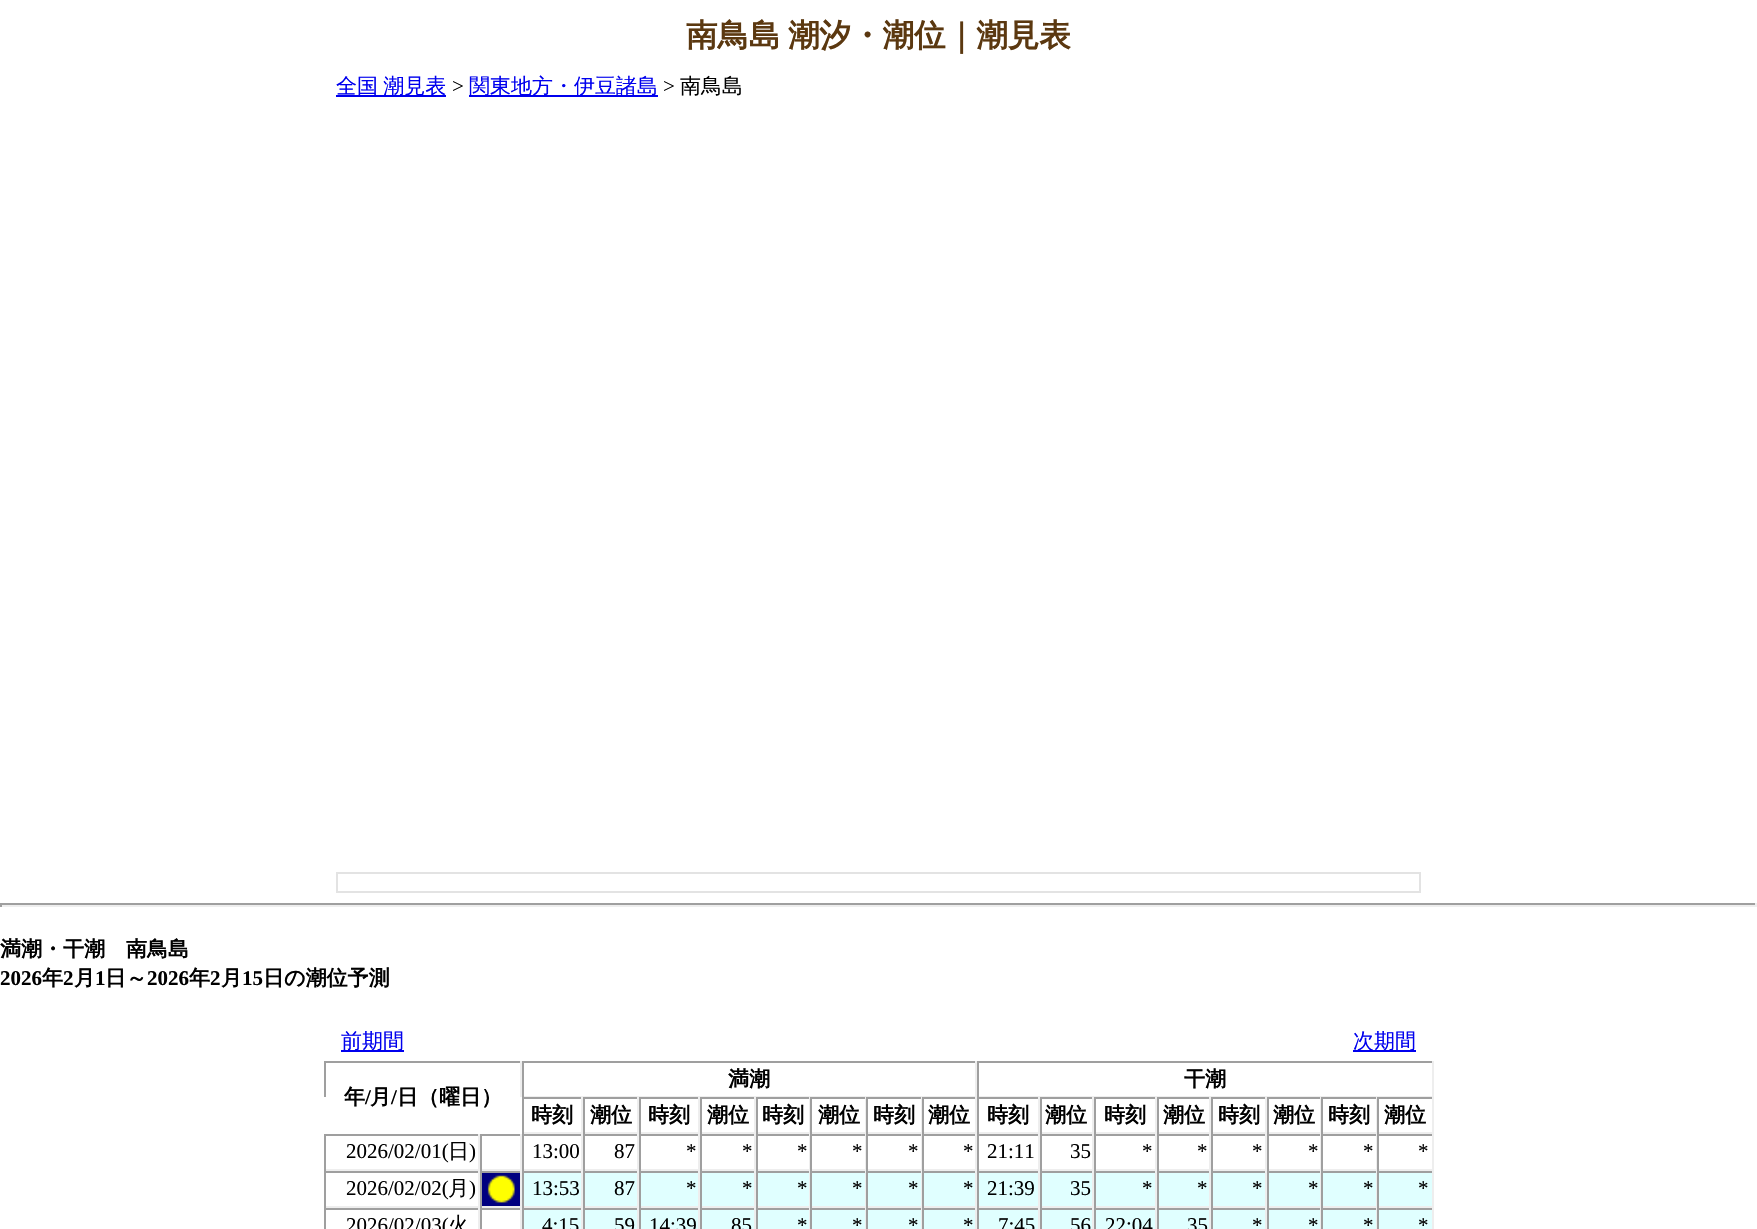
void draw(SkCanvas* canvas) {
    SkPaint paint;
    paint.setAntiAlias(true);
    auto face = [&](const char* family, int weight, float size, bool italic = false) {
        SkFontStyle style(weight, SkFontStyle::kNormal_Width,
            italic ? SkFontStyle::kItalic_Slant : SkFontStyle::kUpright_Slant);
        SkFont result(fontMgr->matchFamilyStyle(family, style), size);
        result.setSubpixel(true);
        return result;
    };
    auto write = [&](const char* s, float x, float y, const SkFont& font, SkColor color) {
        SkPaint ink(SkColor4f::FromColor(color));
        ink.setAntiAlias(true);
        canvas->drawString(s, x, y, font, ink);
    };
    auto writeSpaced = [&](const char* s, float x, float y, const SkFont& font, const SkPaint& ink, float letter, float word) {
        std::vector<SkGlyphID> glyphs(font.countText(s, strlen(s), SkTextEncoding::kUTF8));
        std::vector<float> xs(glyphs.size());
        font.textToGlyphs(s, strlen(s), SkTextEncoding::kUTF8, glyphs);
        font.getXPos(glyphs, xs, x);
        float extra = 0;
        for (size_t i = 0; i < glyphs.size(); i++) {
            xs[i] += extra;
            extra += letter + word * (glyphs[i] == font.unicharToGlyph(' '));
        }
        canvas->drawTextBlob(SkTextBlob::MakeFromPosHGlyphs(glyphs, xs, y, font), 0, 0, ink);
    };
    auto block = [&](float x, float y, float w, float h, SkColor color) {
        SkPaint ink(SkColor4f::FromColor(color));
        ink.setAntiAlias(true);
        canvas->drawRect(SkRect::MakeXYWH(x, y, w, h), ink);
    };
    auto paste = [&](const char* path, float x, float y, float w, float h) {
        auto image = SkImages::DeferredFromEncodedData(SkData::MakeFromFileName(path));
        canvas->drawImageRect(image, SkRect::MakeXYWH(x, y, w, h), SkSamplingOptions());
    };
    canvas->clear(SK_ColorWHITE);
    auto kFont1 = face("WenQuanYi Zen Hei", 700, 31.5f);
    paint.setColor(SkColorSetRGB(91, 56, 16));
    writeSpaced("南鳥島 潮汐・潮位｜潮見表", 686, 46, kFont1, paint, 0, -2);
    block(336, 95, 110, 2, SkColorSetRGB(0, 0, 238));
    auto kFont2 = face("WenQuanYi Zen Hei", 500, 21);
    paint.setColor(SkColorSetRGB(0, 0, 238));
    writeSpaced("全国 潮見表", 336, 93, kFont2, paint, 0, -1);
    auto kFont3 = face("Liberation Serif", 400, 21);
    write(">", 452, 93, kFont3, SK_ColorBLACK);
    block(469, 95, 189, 2, SkColorSetRGB(0, 0, 238));
    write("関東地方・伊豆諸島", 469, 93, kFont2, SkColorSetRGB(0, 0, 238));
    write(">", 663, 93, kFont3, SK_ColorBLACK);
    write("南鳥島", 680, 93, kFont2, SK_ColorBLACK);
    block(336, 872, 1085, 2, SkColorSetRGB(227, 227, 227));
    block(1419, 872, 2, 21, SkColorSetRGB(227, 227, 227));
    block(336, 891, 1085, 2, SkColorSetRGB(227, 227, 227));
    block(336, 872, 2, 21, SkColorSetRGB(227, 227, 227));
    block(0, 903, 1757, 2, SkColorSetRGB(159, 159, 159));
    block(1755, 903, 2, 4, SkColorSetRGB(238, 238, 238));
    block(0, 905, 1757, 2, SkColorSetRGB(238, 238, 238));
    block(0, 903, 2, 4, SkColorSetRGB(159, 159, 159));
    auto kFont4 = face("WenQuanYi Zen Hei", 700, 21);
    write("満潮・干潮　南鳥島", 0, 956, kFont4, SK_ColorBLACK);
    auto kFont5 = face("Liberation Serif", 700, 21);
    write("2026", 0, 985, kFont5, SK_ColorBLACK);
    write("年", 42, 985, kFont4, SK_ColorBLACK);
    write("2", 63, 985, kFont5, SK_ColorBLACK);
    write("月", 74, 985, kFont4, SK_ColorBLACK);
    write("1", 95, 985, kFont5, SK_ColorBLACK);
    write("日～", 105, 985, kFont4, SK_ColorBLACK);
    write("2026", 147, 985, kFont5, SK_ColorBLACK);
    write("年", 189, 985, kFont4, SK_ColorBLACK);
    write("2", 210, 985, kFont5, SK_ColorBLACK);
    write("月", 221, 985, kFont4, SK_ColorBLACK);
    write("15", 242, 985, kFont5, SK_ColorBLACK);
    write("日の潮位予測", 263, 985, kFont4, SK_ColorBLACK);
    block(341, 1050, 63, 2, SkColorSetRGB(0, 0, 238));
    write("前期間", 341, 1048, kFont2, SkColorSetRGB(0, 0, 238));
    block(1353, 1050, 63, 2, SkColorSetRGB(0, 0, 238));
    write("次期間", 1353, 1048, kFont2, SkColorSetRGB(0, 0, 238));
    block(524, 1173, 908, 56, SkColorSetRGB(224, 255, 255));
    block(324, 1061, 1109, 2, SkColorSetRGB(159, 159, 159));
    block(975, 1061, 2, 36, SkColorSetRGB(238, 238, 238));
    block(522, 1096, 455, 1, SkColorSetRGB(238, 238, 238));
    block(522, 1061, 2, 36, SkColorSetRGB(159, 159, 159));
    write("満潮", 728, 1086, kFont4, SK_ColorBLACK);
    block(1432, 1061, 2, 36, SkColorSetRGB(238, 238, 238));
    block(977, 1096, 456, 1, SkColorSetRGB(238, 238, 238));
    block(977, 1061, 2, 36, SkColorSetRGB(159, 159, 159));
    write("干潮", 1184, 1086, kFont4, SK_ColorBLACK);
    block(520, 1061, 2, 36, SkColorSetRGB(238, 238, 238));
    block(324, 1061, 2, 36, SkColorSetRGB(159, 159, 159));
    write("年", 344, 1104, kFont4, SK_ColorBLACK);
    write("/", 365, 1104, kFont5, SK_ColorBLACK);
    write("月", 370, 1104, kFont4, SK_ColorBLACK);
    write("/", 391, 1104, kFont5, SK_ColorBLACK);
    write("日（曜日）", 397, 1104, kFont4, SK_ColorBLACK);
    block(522, 1097, 911, 2, SkColorSetRGB(159, 159, 159));
    block(581, 1097, 2, 37, SkColorSetRGB(238, 238, 238));
    block(522, 1132, 61, 2, SkColorSetRGB(238, 238, 238));
    block(522, 1097, 2, 37, SkColorSetRGB(159, 159, 159));
    write("時刻", 531, 1122, kFont4, SK_ColorBLACK);
    block(637, 1097, 2, 37, SkColorSetRGB(238, 238, 238));
    block(583, 1132, 56, 2, SkColorSetRGB(238, 238, 238));
    block(583, 1097, 2, 37, SkColorSetRGB(159, 159, 159));
    write("潮位", 590, 1122, kFont4, SK_ColorBLACK);
    block(698, 1097, 2, 37, SkColorSetRGB(238, 238, 238));
    block(639, 1132, 61, 2, SkColorSetRGB(238, 238, 238));
    block(639, 1097, 2, 37, SkColorSetRGB(159, 159, 159));
    write("時刻", 648, 1122, kFont4, SK_ColorBLACK);
    block(754, 1097, 2, 37, SkColorSetRGB(238, 238, 238));
    block(700, 1132, 56, 2, SkColorSetRGB(238, 238, 238));
    block(700, 1097, 2, 37, SkColorSetRGB(159, 159, 159));
    write("潮位", 707, 1122, kFont4, SK_ColorBLACK);
    block(809, 1097, 1, 37, SkColorSetRGB(238, 238, 238));
    block(756, 1132, 54, 2, SkColorSetRGB(238, 238, 238));
    block(756, 1097, 2, 37, SkColorSetRGB(159, 159, 159));
    write("時刻", 762, 1122, kFont4, SK_ColorBLACK);
    block(865, 1097, 1, 37, SkColorSetRGB(238, 238, 238));
    block(810, 1132, 56, 2, SkColorSetRGB(238, 238, 238));
    block(810, 1097, 2, 37, SkColorSetRGB(159, 159, 159));
    write("潮位", 818, 1122, kFont4, SK_ColorBLACK);
    block(921, 1097, 1, 37, SkColorSetRGB(238, 238, 238));
    block(866, 1132, 56, 2, SkColorSetRGB(238, 238, 238));
    block(866, 1097, 2, 37, SkColorSetRGB(159, 159, 159));
    write("時刻", 873, 1122, kFont4, SK_ColorBLACK);
    block(975, 1097, 2, 37, SkColorSetRGB(238, 238, 238));
    block(922, 1132, 55, 2, SkColorSetRGB(238, 238, 238));
    block(922, 1097, 2, 37, SkColorSetRGB(159, 159, 159));
    write("潮位", 928, 1122, kFont4, SK_ColorBLACK);
    block(1038, 1097, 2, 37, SkColorSetRGB(238, 238, 238));
    block(977, 1132, 63, 2, SkColorSetRGB(238, 238, 238));
    block(977, 1097, 2, 37, SkColorSetRGB(159, 159, 159));
    write("時刻", 987, 1122, kFont4, SK_ColorBLACK);
    block(1092, 1097, 2, 37, SkColorSetRGB(238, 238, 238));
    block(1040, 1132, 54, 2, SkColorSetRGB(238, 238, 238));
    block(1040, 1097, 2, 37, SkColorSetRGB(159, 159, 159));
    write("潮位", 1045, 1122, kFont4, SK_ColorBLACK);
    block(1155, 1097, 2, 37, SkColorSetRGB(238, 238, 238));
    block(1094, 1132, 63, 2, SkColorSetRGB(238, 238, 238));
    block(1094, 1097, 2, 37, SkColorSetRGB(159, 159, 159));
    write("時刻", 1104, 1122, kFont4, SK_ColorBLACK);
    block(1209, 1097, 2, 37, SkColorSetRGB(238, 238, 238));
    block(1157, 1132, 54, 2, SkColorSetRGB(238, 238, 238));
    block(1157, 1097, 2, 37, SkColorSetRGB(159, 159, 159));
    write("潮位", 1163, 1122, kFont4, SK_ColorBLACK);
    block(1265, 1097, 2, 37, SkColorSetRGB(238, 238, 238));
    block(1211, 1132, 56, 2, SkColorSetRGB(238, 238, 238));
    block(1211, 1097, 2, 37, SkColorSetRGB(159, 159, 159));
    write("時刻", 1218, 1122, kFont4, SK_ColorBLACK);
    block(1320, 1097, 1, 37, SkColorSetRGB(238, 238, 238));
    block(1267, 1132, 54, 2, SkColorSetRGB(238, 238, 238));
    block(1267, 1097, 2, 37, SkColorSetRGB(159, 159, 159));
    write("潮位", 1273, 1122, kFont4, SK_ColorBLACK);
    block(1376, 1097, 1, 37, SkColorSetRGB(238, 238, 238));
    block(1321, 1132, 56, 2, SkColorSetRGB(238, 238, 238));
    block(1321, 1097, 2, 37, SkColorSetRGB(159, 159, 159));
    write("時刻", 1328, 1122, kFont4, SK_ColorBLACK);
    block(1432, 1097, 2, 37, SkColorSetRGB(238, 238, 238));
    block(1377, 1132, 56, 2, SkColorSetRGB(238, 238, 238));
    block(1377, 1097, 2, 37, SkColorSetRGB(159, 159, 159));
    write("潮位", 1384, 1122, kFont4, SK_ColorBLACK);
    block(324, 1134, 1109, 2, SkColorSetRGB(159, 159, 159));
    block(478, 1134, 2, 37, SkColorSetRGB(238, 238, 238));
    block(324, 1169, 156, 2, SkColorSetRGB(238, 238, 238));
    block(324, 1134, 2, 37, SkColorSetRGB(159, 159, 159));
    write("2026/02/01(", 346, 1158, kFont3, SK_ColorBLACK);
    write("日", 448, 1158, kFont2, SK_ColorBLACK);
    write(")", 469, 1158, kFont3, SK_ColorBLACK);
    block(520, 1134, 2, 37, SkColorSetRGB(238, 238, 238));
    block(480, 1169, 42, 2, SkColorSetRGB(238, 238, 238));
    block(480, 1134, 2, 37, SkColorSetRGB(159, 159, 159));
    block(581, 1134, 2, 37, SkColorSetRGB(238, 238, 238));
    block(522, 1169, 61, 2, SkColorSetRGB(238, 238, 238));
    block(522, 1134, 2, 37, SkColorSetRGB(159, 159, 159));
    write("13:00", 532, 1158, kFont3, SK_ColorBLACK);
    block(637, 1134, 2, 37, SkColorSetRGB(238, 238, 238));
    block(583, 1169, 56, 2, SkColorSetRGB(238, 238, 238));
    block(583, 1134, 2, 37, SkColorSetRGB(159, 159, 159));
    write("87", 614, 1158, kFont3, SK_ColorBLACK);
    block(698, 1134, 2, 37, SkColorSetRGB(238, 238, 238));
    block(639, 1169, 61, 2, SkColorSetRGB(238, 238, 238));
    block(639, 1134, 2, 37, SkColorSetRGB(159, 159, 159));
    write("*", 686, 1158, kFont3, SK_ColorBLACK);
    block(754, 1134, 2, 37, SkColorSetRGB(238, 238, 238));
    block(700, 1169, 56, 2, SkColorSetRGB(238, 238, 238));
    block(700, 1134, 2, 37, SkColorSetRGB(159, 159, 159));
    write("*", 742, 1158, kFont3, SK_ColorBLACK);
    block(809, 1134, 1, 37, SkColorSetRGB(238, 238, 238));
    block(756, 1169, 54, 2, SkColorSetRGB(238, 238, 238));
    block(756, 1134, 2, 37, SkColorSetRGB(159, 159, 159));
    write("*", 797, 1158, kFont3, SK_ColorBLACK);
    block(865, 1134, 1, 37, SkColorSetRGB(238, 238, 238));
    block(810, 1169, 56, 2, SkColorSetRGB(238, 238, 238));
    block(810, 1134, 2, 37, SkColorSetRGB(159, 159, 159));
    write("*", 852, 1158, kFont3, SK_ColorBLACK);
    block(921, 1134, 1, 37, SkColorSetRGB(238, 238, 238));
    block(866, 1169, 56, 2, SkColorSetRGB(238, 238, 238));
    block(866, 1134, 2, 37, SkColorSetRGB(159, 159, 159));
    write("*", 908, 1158, kFont3, SK_ColorBLACK);
    block(975, 1134, 2, 37, SkColorSetRGB(238, 238, 238));
    block(922, 1169, 55, 2, SkColorSetRGB(238, 238, 238));
    block(922, 1134, 2, 37, SkColorSetRGB(159, 159, 159));
    write("*", 963, 1158, kFont3, SK_ColorBLACK);
    block(1038, 1134, 2, 37, SkColorSetRGB(238, 238, 238));
    block(977, 1169, 63, 2, SkColorSetRGB(238, 238, 238));
    block(977, 1134, 2, 37, SkColorSetRGB(159, 159, 159));
    write("21:11", 987, 1158, kFont3, SK_ColorBLACK);
    block(1092, 1134, 2, 37, SkColorSetRGB(238, 238, 238));
    block(1040, 1169, 54, 2, SkColorSetRGB(238, 238, 238));
    block(1040, 1134, 2, 37, SkColorSetRGB(159, 159, 159));
    write("35", 1070, 1158, kFont3, SK_ColorBLACK);
    block(1155, 1134, 2, 37, SkColorSetRGB(238, 238, 238));
    block(1094, 1169, 63, 2, SkColorSetRGB(238, 238, 238));
    block(1094, 1134, 2, 37, SkColorSetRGB(159, 159, 159));
    write("*", 1142, 1158, kFont3, SK_ColorBLACK);
    block(1209, 1134, 2, 37, SkColorSetRGB(238, 238, 238));
    block(1157, 1169, 54, 2, SkColorSetRGB(238, 238, 238));
    block(1157, 1134, 2, 37, SkColorSetRGB(159, 159, 159));
    write("*", 1197, 1158, kFont3, SK_ColorBLACK);
    block(1265, 1134, 2, 37, SkColorSetRGB(238, 238, 238));
    block(1211, 1169, 56, 2, SkColorSetRGB(238, 238, 238));
    block(1211, 1134, 2, 37, SkColorSetRGB(159, 159, 159));
    write("*", 1252, 1158, kFont3, SK_ColorBLACK);
    block(1320, 1134, 1, 37, SkColorSetRGB(238, 238, 238));
    block(1267, 1169, 54, 2, SkColorSetRGB(238, 238, 238));
    block(1267, 1134, 2, 37, SkColorSetRGB(159, 159, 159));
    write("*", 1308, 1158, kFont3, SK_ColorBLACK);
    block(1376, 1134, 1, 37, SkColorSetRGB(238, 238, 238));
    block(1321, 1169, 56, 2, SkColorSetRGB(238, 238, 238));
    block(1321, 1134, 2, 37, SkColorSetRGB(159, 159, 159));
    write("*", 1363, 1158, kFont3, SK_ColorBLACK);
    block(1432, 1134, 2, 37, SkColorSetRGB(238, 238, 238));
    block(1377, 1169, 56, 2, SkColorSetRGB(238, 238, 238));
    block(1377, 1134, 2, 37, SkColorSetRGB(159, 159, 159));
    write("*", 1418, 1158, kFont3, SK_ColorBLACK);
    block(324, 1171, 1109, 2, SkColorSetRGB(159, 159, 159));
    block(478, 1171, 2, 37, SkColorSetRGB(238, 238, 238));
    block(324, 1206, 156, 2, SkColorSetRGB(238, 238, 238));
    block(324, 1171, 2, 37, SkColorSetRGB(159, 159, 159));
    write("2026/02/02(", 346, 1195, kFont3, SK_ColorBLACK);
    write("月", 448, 1195, kFont2, SK_ColorBLACK);
    write(")", 469, 1195, kFont3, SK_ColorBLACK);
    block(482, 1173, 38, 33, SkColorSetRGB(0, 0, 128));
    block(520, 1171, 2, 37, SkColorSetRGB(238, 238, 238));
    block(480, 1206, 42, 2, SkColorSetRGB(238, 238, 238));
    block(480, 1171, 2, 37, SkColorSetRGB(159, 159, 159));
    paste("pic1.png", 487, 1175, 28, 28);
    block(581, 1171, 2, 37, SkColorSetRGB(238, 238, 238));
    block(522, 1206, 61, 2, SkColorSetRGB(238, 238, 238));
    block(522, 1171, 2, 37, SkColorSetRGB(159, 159, 159));
    write("13:53", 532, 1195, kFont3, SK_ColorBLACK);
    block(637, 1171, 2, 37, SkColorSetRGB(238, 238, 238));
    block(583, 1206, 56, 2, SkColorSetRGB(238, 238, 238));
    block(583, 1171, 2, 37, SkColorSetRGB(159, 159, 159));
    write("87", 614, 1195, kFont3, SK_ColorBLACK);
    block(698, 1171, 2, 37, SkColorSetRGB(238, 238, 238));
    block(639, 1206, 61, 2, SkColorSetRGB(238, 238, 238));
    block(639, 1171, 2, 37, SkColorSetRGB(159, 159, 159));
    write("*", 686, 1195, kFont3, SK_ColorBLACK);
    block(754, 1171, 2, 37, SkColorSetRGB(238, 238, 238));
    block(700, 1206, 56, 2, SkColorSetRGB(238, 238, 238));
    block(700, 1171, 2, 37, SkColorSetRGB(159, 159, 159));
    write("*", 742, 1195, kFont3, SK_ColorBLACK);
    block(809, 1171, 1, 37, SkColorSetRGB(238, 238, 238));
    block(756, 1206, 54, 2, SkColorSetRGB(238, 238, 238));
    block(756, 1171, 2, 37, SkColorSetRGB(159, 159, 159));
    write("*", 797, 1195, kFont3, SK_ColorBLACK);
    block(865, 1171, 1, 37, SkColorSetRGB(238, 238, 238));
    block(810, 1206, 56, 2, SkColorSetRGB(238, 238, 238));
    block(810, 1171, 2, 37, SkColorSetRGB(159, 159, 159));
    write("*", 852, 1195, kFont3, SK_ColorBLACK);
    block(921, 1171, 1, 37, SkColorSetRGB(238, 238, 238));
    block(866, 1206, 56, 2, SkColorSetRGB(238, 238, 238));
    block(866, 1171, 2, 37, SkColorSetRGB(159, 159, 159));
    write("*", 908, 1195, kFont3, SK_ColorBLACK);
    block(975, 1171, 2, 37, SkColorSetRGB(238, 238, 238));
    block(922, 1206, 55, 2, SkColorSetRGB(238, 238, 238));
    block(922, 1171, 2, 37, SkColorSetRGB(159, 159, 159));
    write("*", 963, 1195, kFont3, SK_ColorBLACK);
    block(1038, 1171, 2, 37, SkColorSetRGB(238, 238, 238));
    block(977, 1206, 63, 2, SkColorSetRGB(238, 238, 238));
    block(977, 1171, 2, 37, SkColorSetRGB(159, 159, 159));
    write("21:39", 987, 1195, kFont3, SK_ColorBLACK);
    block(1092, 1171, 2, 37, SkColorSetRGB(238, 238, 238));
    block(1040, 1206, 54, 2, SkColorSetRGB(238, 238, 238));
    block(1040, 1171, 2, 37, SkColorSetRGB(159, 159, 159));
    write("35", 1070, 1195, kFont3, SK_ColorBLACK);
    block(1155, 1171, 2, 37, SkColorSetRGB(238, 238, 238));
    block(1094, 1206, 63, 2, SkColorSetRGB(238, 238, 238));
    block(1094, 1171, 2, 37, SkColorSetRGB(159, 159, 159));
    write("*", 1142, 1195, kFont3, SK_ColorBLACK);
    block(1209, 1171, 2, 37, SkColorSetRGB(238, 238, 238));
    block(1157, 1206, 54, 2, SkColorSetRGB(238, 238, 238));
    block(1157, 1171, 2, 37, SkColorSetRGB(159, 159, 159));
    write("*", 1197, 1195, kFont3, SK_ColorBLACK);
    block(1265, 1171, 2, 37, SkColorSetRGB(238, 238, 238));
    block(1211, 1206, 56, 2, SkColorSetRGB(238, 238, 238));
    block(1211, 1171, 2, 37, SkColorSetRGB(159, 159, 159));
    write("*", 1252, 1195, kFont3, SK_ColorBLACK);
    block(1320, 1171, 1, 37, SkColorSetRGB(238, 238, 238));
    block(1267, 1206, 54, 2, SkColorSetRGB(238, 238, 238));
    block(1267, 1171, 2, 37, SkColorSetRGB(159, 159, 159));
    write("*", 1308, 1195, kFont3, SK_ColorBLACK);
    block(1376, 1171, 1, 37, SkColorSetRGB(238, 238, 238));
    block(1321, 1206, 56, 2, SkColorSetRGB(238, 238, 238));
    block(1321, 1171, 2, 37, SkColorSetRGB(159, 159, 159));
    write("*", 1363, 1195, kFont3, SK_ColorBLACK);
    block(1432, 1171, 2, 37, SkColorSetRGB(238, 238, 238));
    block(1377, 1206, 56, 2, SkColorSetRGB(238, 238, 238));
    block(1377, 1171, 2, 37, SkColorSetRGB(159, 159, 159));
    write("*", 1418, 1195, kFont3, SK_ColorBLACK);
    block(324, 1208, 1109, 2, SkColorSetRGB(159, 159, 159));
    block(478, 1208, 2, 21, SkColorSetRGB(238, 238, 238));
    block(324, 1208, 2, 21, SkColorSetRGB(159, 159, 159));
    write("2026/02/03(", 346, 1232, kFont3, SK_ColorBLACK);
    write("火", 448, 1232, kFont2, SK_ColorBLACK);
    block(520, 1208, 2, 21, SkColorSetRGB(238, 238, 238));
    block(480, 1208, 2, 21, SkColorSetRGB(159, 159, 159));
    block(581, 1208, 2, 21, SkColorSetRGB(238, 238, 238));
    block(522, 1208, 2, 21, SkColorSetRGB(159, 159, 159));
    write("4:15", 542, 1232, kFont3, SK_ColorBLACK);
    block(637, 1208, 2, 21, SkColorSetRGB(238, 238, 238));
    block(583, 1208, 2, 21, SkColorSetRGB(159, 159, 159));
    write("59", 614, 1232, kFont3, SK_ColorBLACK);
    block(698, 1208, 2, 21, SkColorSetRGB(238, 238, 238));
    block(639, 1208, 2, 21, SkColorSetRGB(159, 159, 159));
    write("14:39", 649, 1232, kFont3, SK_ColorBLACK);
    block(754, 1208, 2, 21, SkColorSetRGB(238, 238, 238));
    block(700, 1208, 2, 21, SkColorSetRGB(159, 159, 159));
    write("85", 731, 1232, kFont3, SK_ColorBLACK);
    block(809, 1208, 1, 21, SkColorSetRGB(238, 238, 238));
    block(756, 1208, 2, 21, SkColorSetRGB(159, 159, 159));
    write("*", 797, 1232, kFont3, SK_ColorBLACK);
    block(865, 1208, 1, 21, SkColorSetRGB(238, 238, 238));
    block(810, 1208, 2, 21, SkColorSetRGB(159, 159, 159));
    write("*", 852, 1232, kFont3, SK_ColorBLACK);
    block(921, 1208, 1, 21, SkColorSetRGB(238, 238, 238));
    block(866, 1208, 2, 21, SkColorSetRGB(159, 159, 159));
    write("*", 908, 1232, kFont3, SK_ColorBLACK);
    block(975, 1208, 2, 21, SkColorSetRGB(238, 238, 238));
    block(922, 1208, 2, 21, SkColorSetRGB(159, 159, 159));
    write("*", 963, 1232, kFont3, SK_ColorBLACK);
    block(1038, 1208, 2, 21, SkColorSetRGB(238, 238, 238));
    block(977, 1208, 2, 21, SkColorSetRGB(159, 159, 159));
    write("7:45", 998, 1232, kFont3, SK_ColorBLACK);
    block(1092, 1208, 2, 21, SkColorSetRGB(238, 238, 238));
    block(1040, 1208, 2, 21, SkColorSetRGB(159, 159, 159));
    write("56", 1070, 1232, kFont3, SK_ColorBLACK);
    block(1155, 1208, 2, 21, SkColorSetRGB(238, 238, 238));
    block(1094, 1208, 2, 21, SkColorSetRGB(159, 159, 159));
    write("22:04", 1105, 1232, kFont3, SK_ColorBLACK);
    block(1209, 1208, 2, 21, SkColorSetRGB(238, 238, 238));
    block(1157, 1208, 2, 21, SkColorSetRGB(159, 159, 159));
    write("35", 1187, 1232, kFont3, SK_ColorBLACK);
    block(1265, 1208, 2, 21, SkColorSetRGB(238, 238, 238));
    block(1211, 1208, 2, 21, SkColorSetRGB(159, 159, 159));
    write("*", 1252, 1232, kFont3, SK_ColorBLACK);
    block(1320, 1208, 1, 21, SkColorSetRGB(238, 238, 238));
    block(1267, 1208, 2, 21, SkColorSetRGB(159, 159, 159));
    write("*", 1308, 1232, kFont3, SK_ColorBLACK);
    block(1376, 1208, 1, 21, SkColorSetRGB(238, 238, 238));
    block(1321, 1208, 2, 21, SkColorSetRGB(159, 159, 159));
    write("*", 1363, 1232, kFont3, SK_ColorBLACK);
    block(1432, 1208, 2, 21, SkColorSetRGB(238, 238, 238));
    block(1377, 1208, 2, 21, SkColorSetRGB(159, 159, 159));
    write("*", 1418, 1232, kFont3, SK_ColorBLACK);
}
